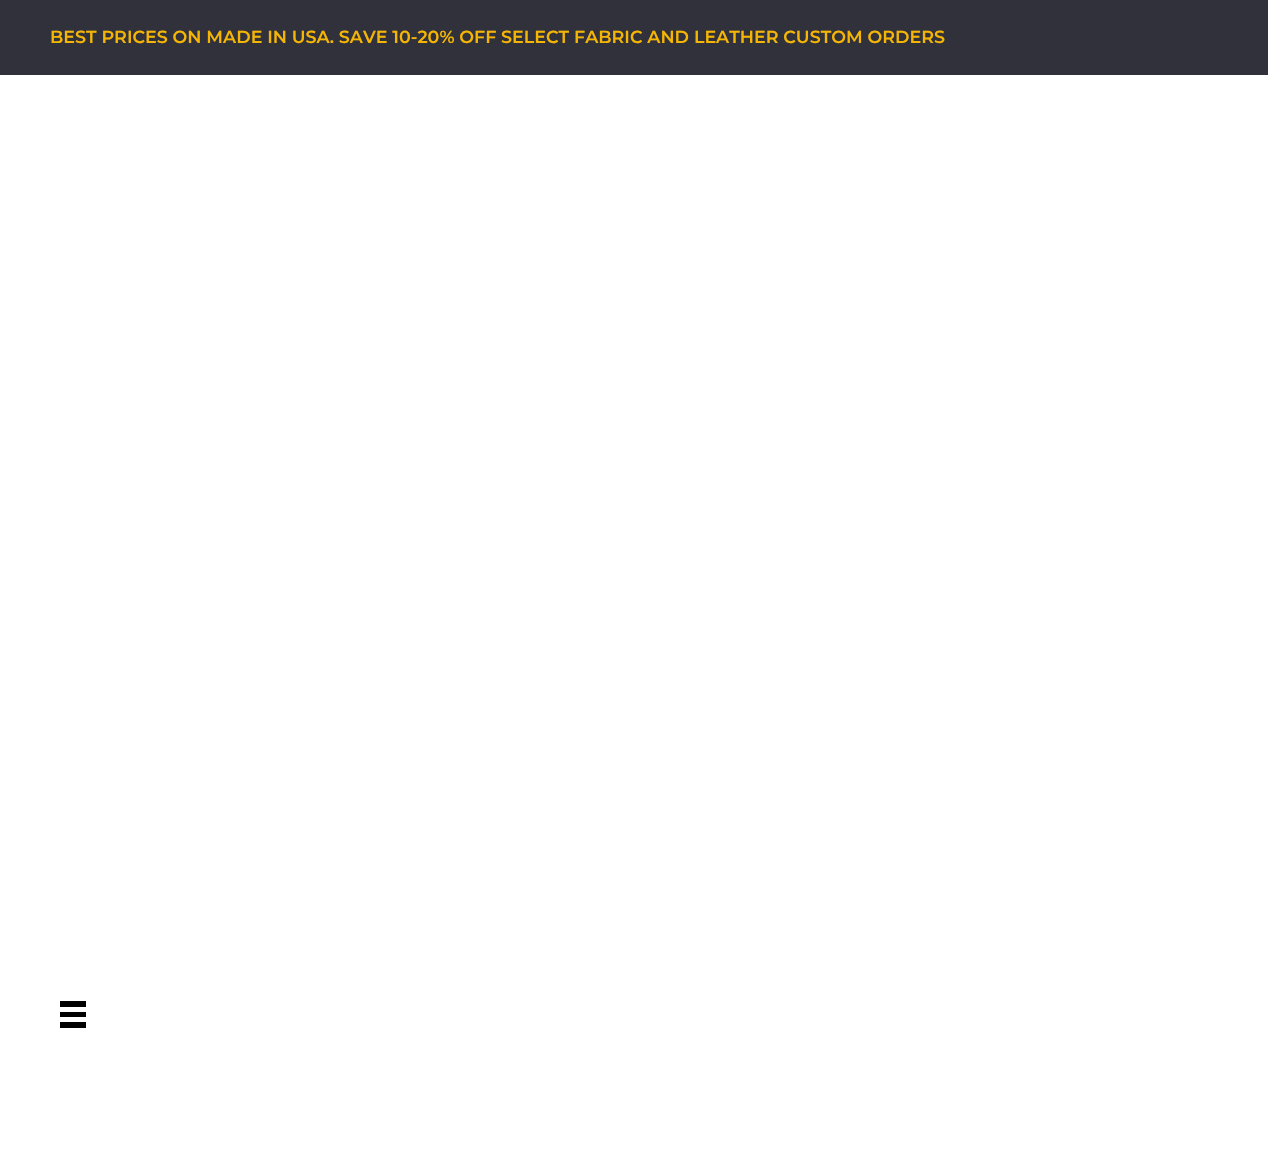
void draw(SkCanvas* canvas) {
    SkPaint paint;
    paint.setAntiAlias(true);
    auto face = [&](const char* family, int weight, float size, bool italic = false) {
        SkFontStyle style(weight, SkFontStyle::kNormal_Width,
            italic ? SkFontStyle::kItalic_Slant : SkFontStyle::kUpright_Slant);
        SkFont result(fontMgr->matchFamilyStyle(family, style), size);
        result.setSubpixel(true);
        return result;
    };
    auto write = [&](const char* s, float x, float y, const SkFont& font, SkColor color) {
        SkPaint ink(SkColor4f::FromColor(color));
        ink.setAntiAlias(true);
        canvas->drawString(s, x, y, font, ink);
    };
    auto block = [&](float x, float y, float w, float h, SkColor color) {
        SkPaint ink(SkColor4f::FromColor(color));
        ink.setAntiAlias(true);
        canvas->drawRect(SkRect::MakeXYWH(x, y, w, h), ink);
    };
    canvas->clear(SK_ColorWHITE);
    block(0, 0, 1268, 75, SkColorSetRGB(49, 49, 60));
    auto kFont1 = face("Montserrat", 600, 17.5f);
    write("BEST PRICES ON MADE IN USA. SAVE 10-20% OFF SELECT FABRIC AND LEATHER CUSTOM ORDERS", 50, 43, kFont1, SkColorSetRGB(245, 181, 5));
    block(60, 1001, 26, 6, SK_ColorBLACK);
    block(60, 1012, 26, 5, SK_ColorBLACK);
    block(60, 1022, 26, 6, SK_ColorBLACK);
}
